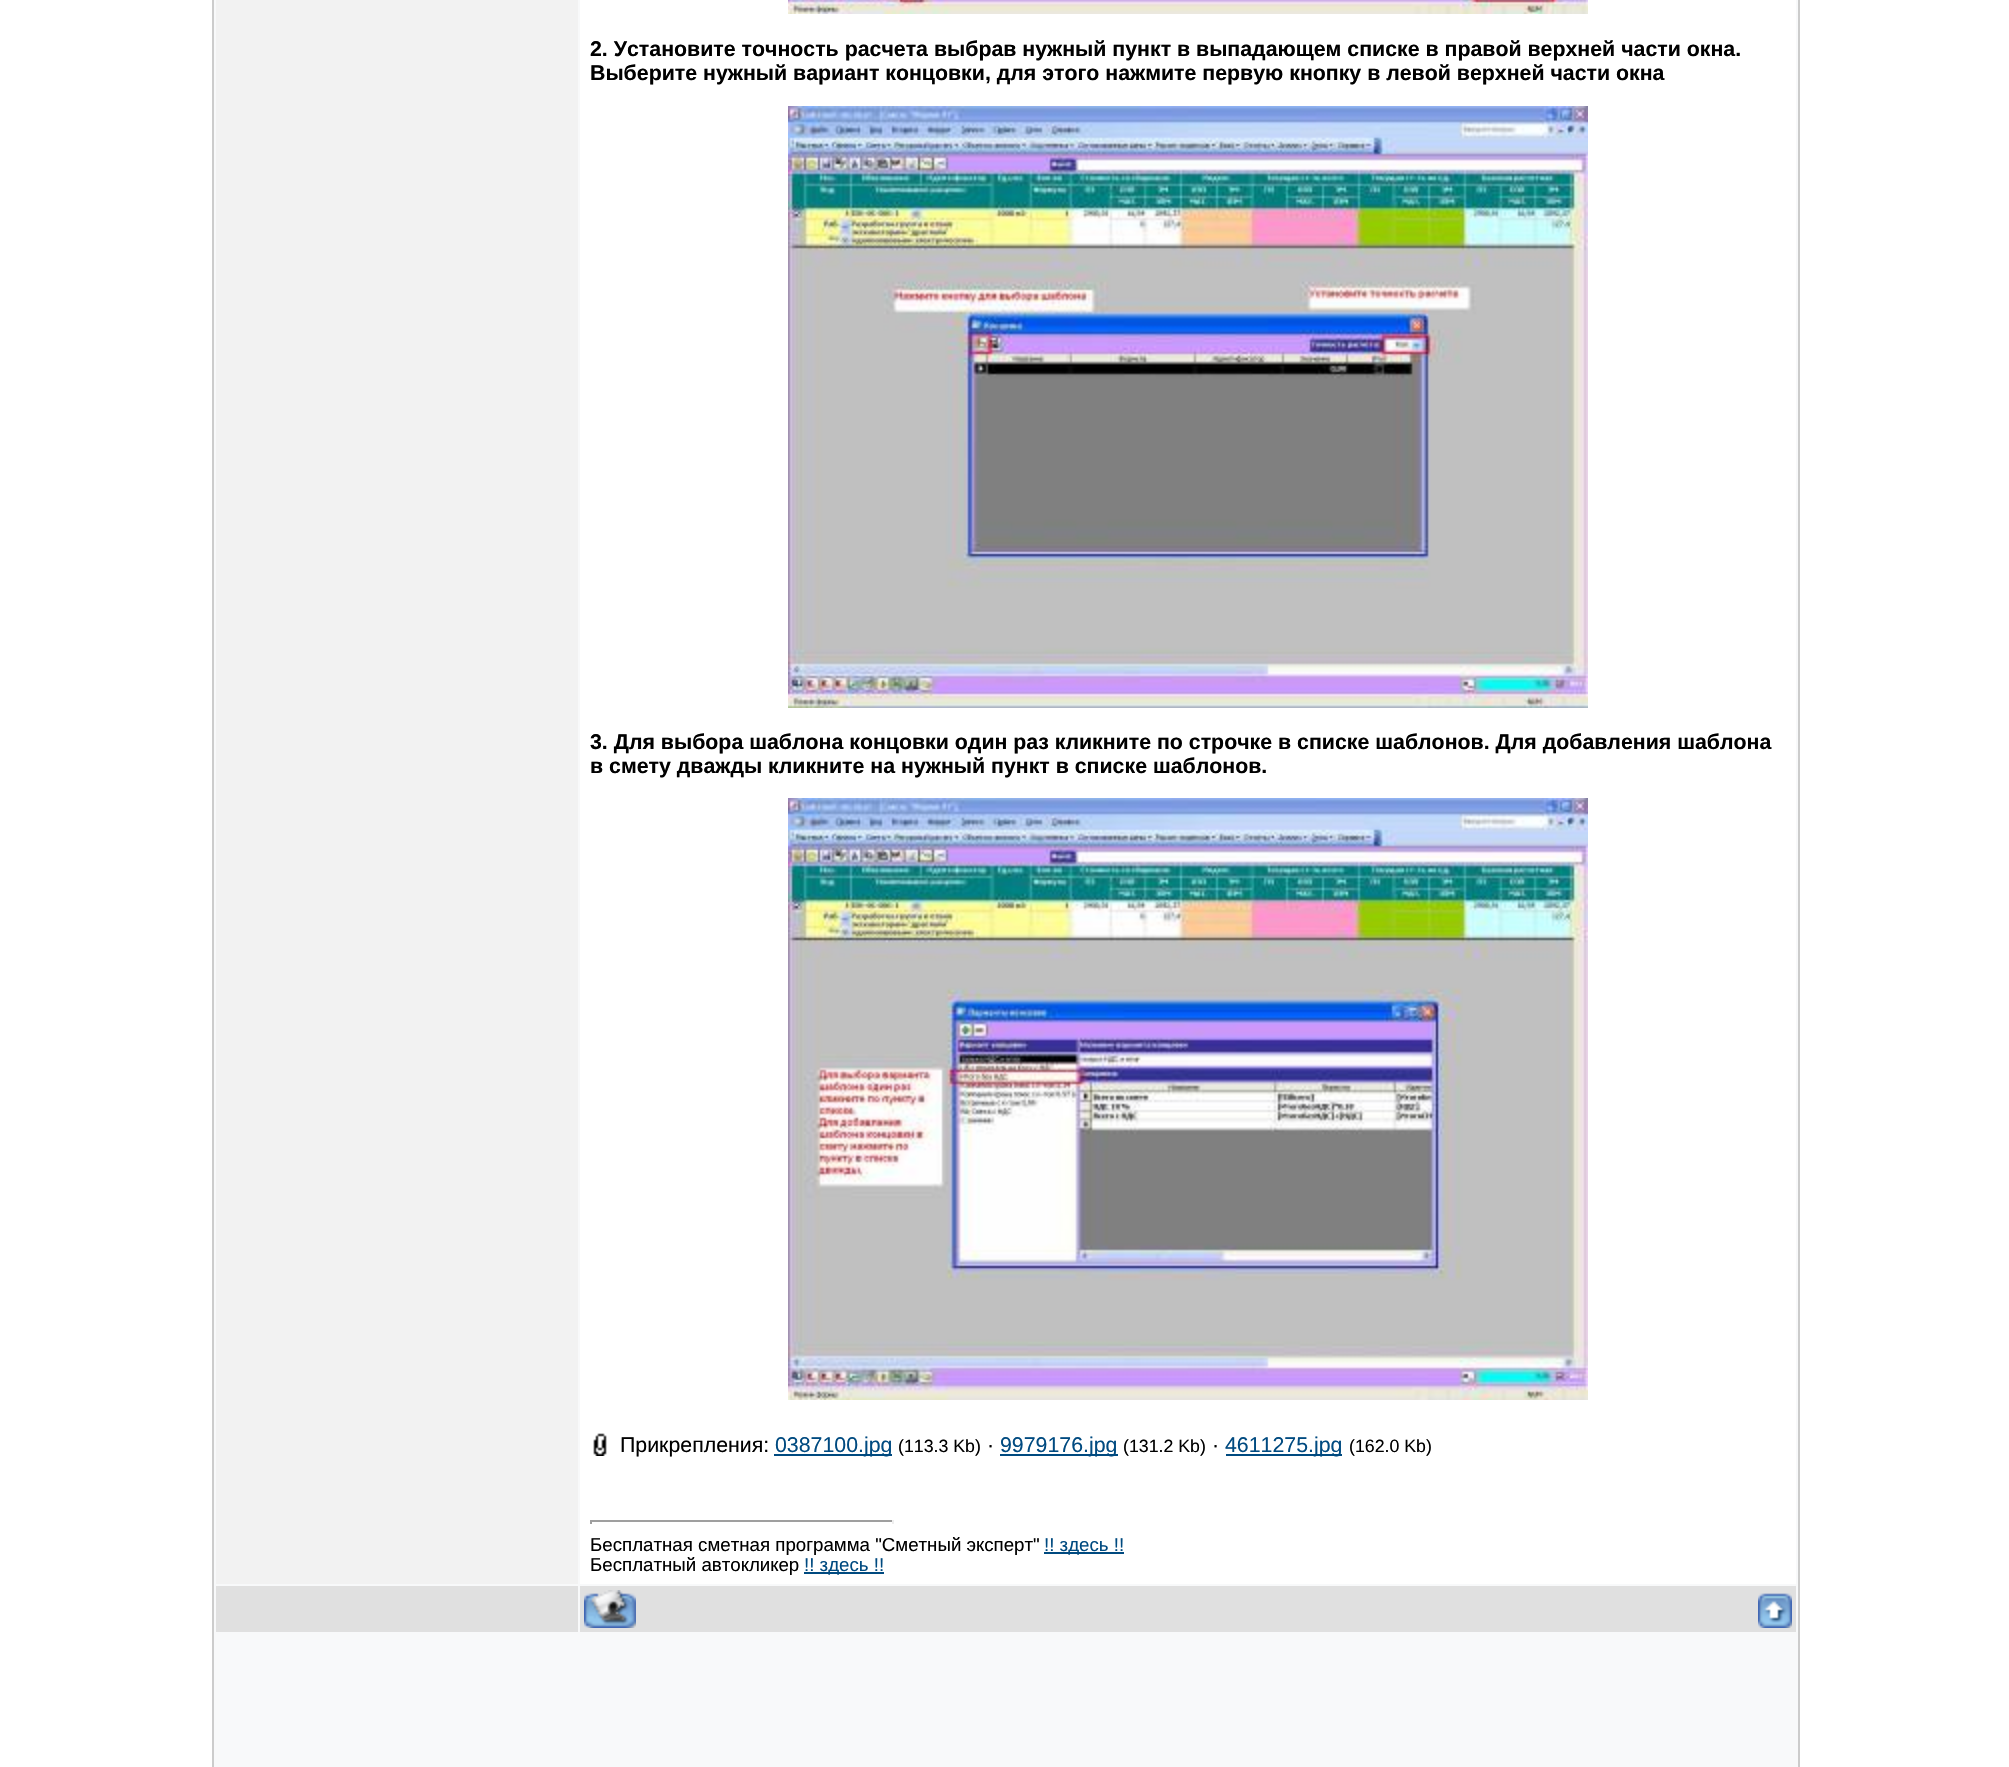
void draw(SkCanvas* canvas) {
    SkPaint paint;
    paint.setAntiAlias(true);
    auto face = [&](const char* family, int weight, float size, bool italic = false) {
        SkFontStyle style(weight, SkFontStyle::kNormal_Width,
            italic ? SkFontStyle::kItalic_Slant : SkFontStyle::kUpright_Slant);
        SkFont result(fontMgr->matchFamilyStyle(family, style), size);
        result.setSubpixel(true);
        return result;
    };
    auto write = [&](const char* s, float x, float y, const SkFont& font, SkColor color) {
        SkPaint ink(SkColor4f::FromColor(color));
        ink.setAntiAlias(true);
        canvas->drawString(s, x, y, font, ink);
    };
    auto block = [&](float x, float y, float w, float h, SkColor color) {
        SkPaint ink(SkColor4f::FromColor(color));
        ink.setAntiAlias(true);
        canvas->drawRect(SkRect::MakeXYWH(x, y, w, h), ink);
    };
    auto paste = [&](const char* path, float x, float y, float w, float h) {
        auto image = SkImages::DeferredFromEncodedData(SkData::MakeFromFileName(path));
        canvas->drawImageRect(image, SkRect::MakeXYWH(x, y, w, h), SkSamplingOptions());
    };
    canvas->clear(SK_ColorWHITE);
    block(212, 0, 1588, 1767, SkColorSetRGB(204, 204, 204));
    block(214, 0, 1584, 1767, SkColorSetRGB(248, 249, 250));
    block(216, 0, 362, 1584, SkColorSetRGB(242, 242, 242));
    block(580, 0, 1216, 1584, SK_ColorWHITE);
    paste("pic1.png", 788, 0, 800, 14);
    auto kFont1 = face("Liberation Sans", 700, 21.33f);
    write("2. Установите точность расчета выбрав нужный пункт в выпадающем списке в правой верхней части окна.", 590, 56, kFont1, SK_ColorBLACK);
    write("Выберите нужный вариант концовки, для этого нажмите первую кнопку в левой верхней части окна", 590, 80, kFont1, SK_ColorBLACK);
    paste("pic2.png", 788, 106, 800, 602);
    write("3. Для выбора шаблона концовки один раз кликните по строчке в списке шаблонов. Для добавления шаблона", 590, 749, kFont1, SK_ColorBLACK);
    write("в смету дважды кликните на нужный пункт в списке шаблонов.", 590, 773, kFont1, SK_ColorBLACK);
    paste("pic3.png", 788, 798, 800, 602);
    paste("pic4.png", 593, 1433, 14, 23);
    auto kFont2 = face("Liberation Sans", 400, 21.33f);
    write("Прикрепления:", 620, 1452, kFont2, SK_ColorBLACK);
    block(774, 1454, 118, 2, SkColorSetRGB(0, 74, 128));
    write("0387100.jpg", 775, 1452, kFont2, SkColorSetRGB(0, 74, 128));
    auto kFont3 = face("Liberation Sans", 400, 17.75f);
    write("(113.3 Kb)", 898, 1452, kFont3, SK_ColorBLACK);
    write("·", 987, 1452, kFont2, SK_ColorBLACK);
    block(1000, 1454, 118, 2, SkColorSetRGB(0, 74, 128));
    write("9979176.jpg", 1000, 1452, kFont2, SkColorSetRGB(0, 74, 128));
    write("(131.2 Kb)", 1123, 1452, kFont3, SK_ColorBLACK);
    write("·", 1212, 1452, kFont2, SK_ColorBLACK);
    block(1226, 1454, 116, 2, SkColorSetRGB(0, 74, 128));
    write("4611275.jpg", 1225, 1452, kFont2, SkColorSetRGB(0, 74, 128));
    write("(162.0 Kb)", 1349, 1452, kFont3, SK_ColorBLACK);
    block(590, 1520, 304, 2, SkColorSetRGB(159, 159, 159));
    block(892, 1520, 2, 4, SkColorSetRGB(238, 238, 238));
    block(590, 1520, 2, 4, SkColorSetRGB(159, 159, 159));
    auto kFont4 = face("Liberation Sans", 400, 18.7f);
    write("Бесплатная сметная программа \"Сметный эксперт\"", 590, 1551, kFont4, SK_ColorBLACK);
    block(1044, 1552, 80, 2, SkColorSetRGB(0, 74, 128));
    write("!! здесь !!", 1044, 1551, kFont4, SkColorSetRGB(0, 74, 128));
    write("Бесплатный автокликер", 590, 1571, kFont4, SK_ColorBLACK);
    block(804, 1572, 80, 2, SkColorSetRGB(0, 74, 128));
    write("!! здесь !!", 804, 1571, kFont4, SkColorSetRGB(0, 74, 128));
    block(216, 1586, 362, 46, SkColorSetRGB(224, 224, 224));
    block(580, 1586, 1216, 46, SkColorSetRGB(224, 224, 224));
    paste("pic5.png", 584, 1590, 52, 38);
    paste("pic6.png", 1758, 1593, 34, 35);
}
